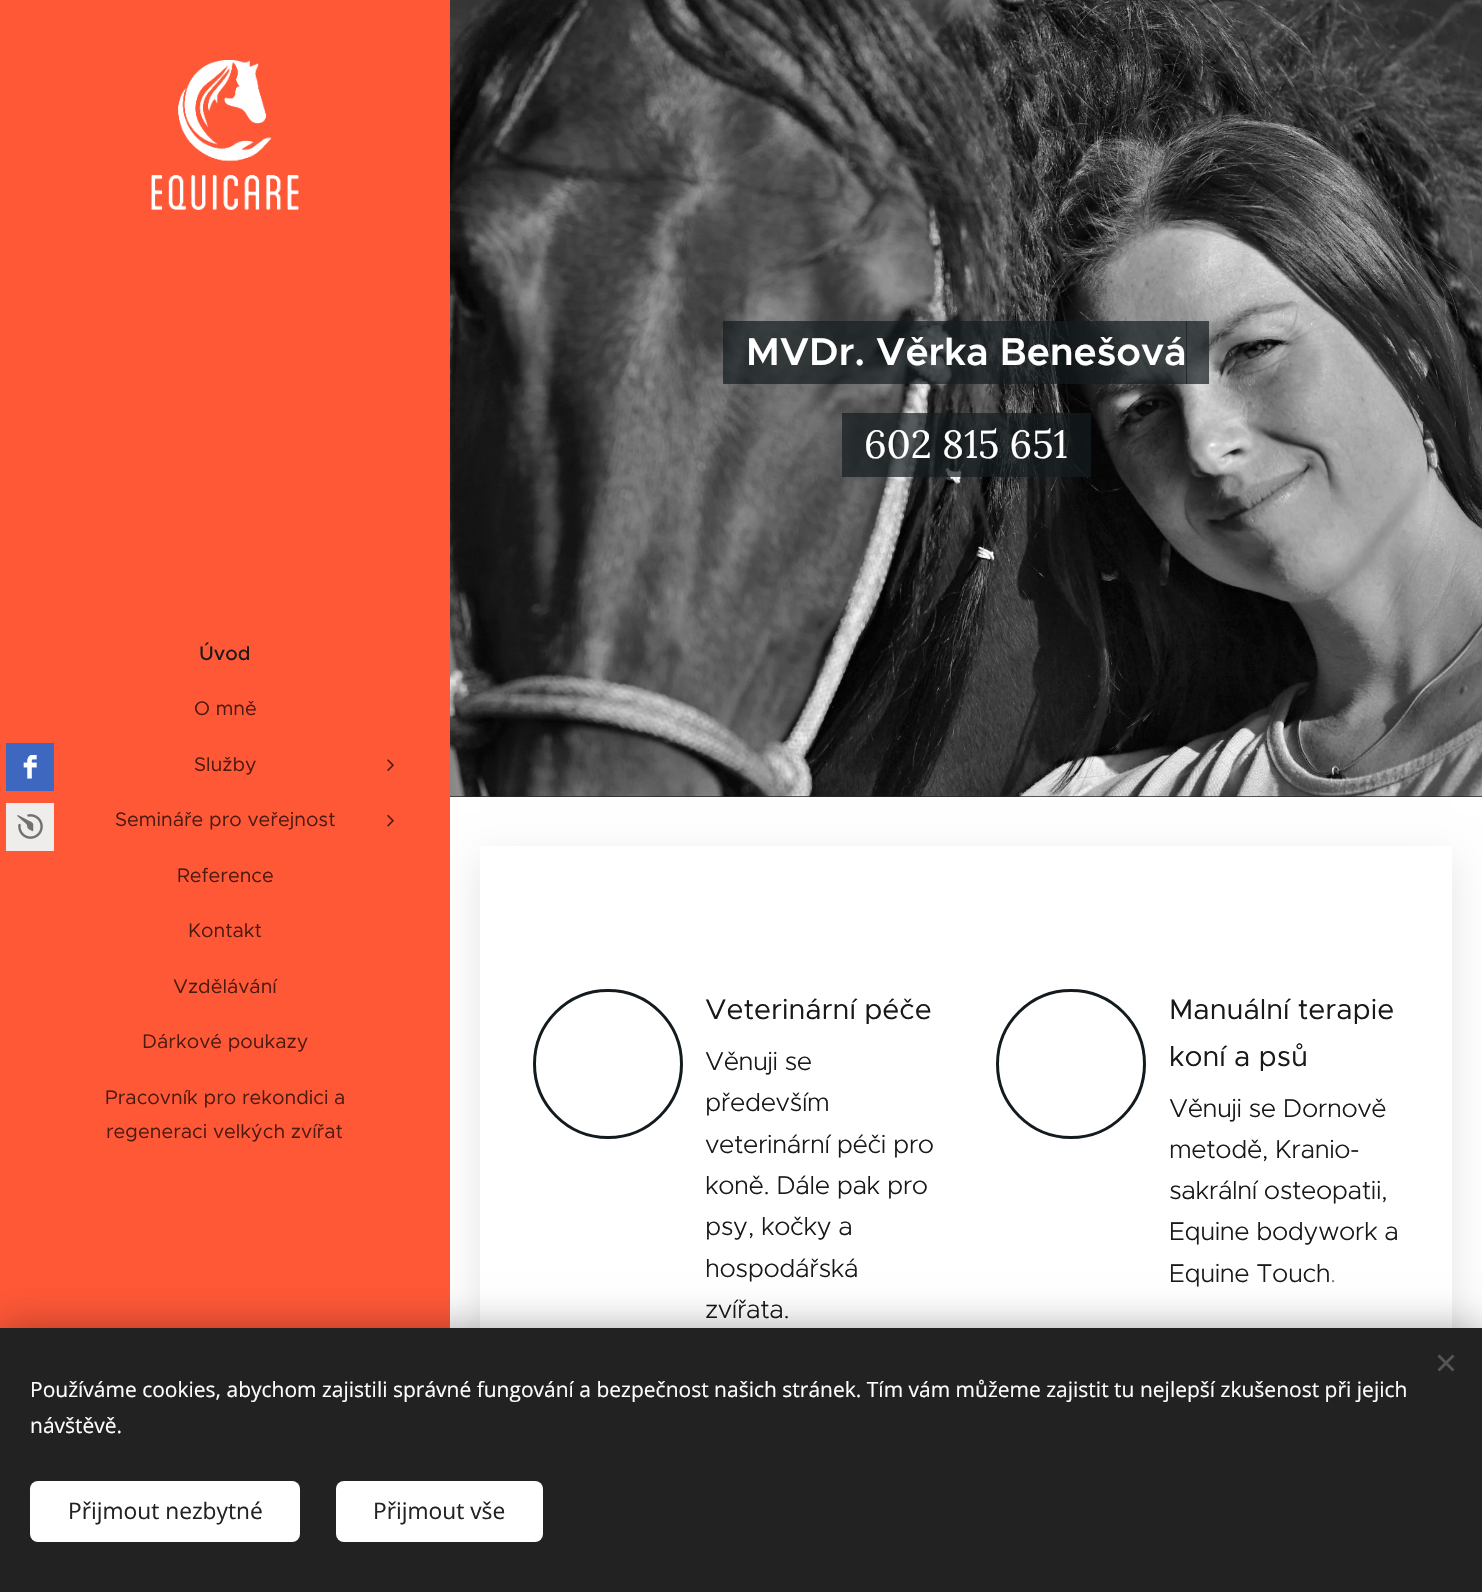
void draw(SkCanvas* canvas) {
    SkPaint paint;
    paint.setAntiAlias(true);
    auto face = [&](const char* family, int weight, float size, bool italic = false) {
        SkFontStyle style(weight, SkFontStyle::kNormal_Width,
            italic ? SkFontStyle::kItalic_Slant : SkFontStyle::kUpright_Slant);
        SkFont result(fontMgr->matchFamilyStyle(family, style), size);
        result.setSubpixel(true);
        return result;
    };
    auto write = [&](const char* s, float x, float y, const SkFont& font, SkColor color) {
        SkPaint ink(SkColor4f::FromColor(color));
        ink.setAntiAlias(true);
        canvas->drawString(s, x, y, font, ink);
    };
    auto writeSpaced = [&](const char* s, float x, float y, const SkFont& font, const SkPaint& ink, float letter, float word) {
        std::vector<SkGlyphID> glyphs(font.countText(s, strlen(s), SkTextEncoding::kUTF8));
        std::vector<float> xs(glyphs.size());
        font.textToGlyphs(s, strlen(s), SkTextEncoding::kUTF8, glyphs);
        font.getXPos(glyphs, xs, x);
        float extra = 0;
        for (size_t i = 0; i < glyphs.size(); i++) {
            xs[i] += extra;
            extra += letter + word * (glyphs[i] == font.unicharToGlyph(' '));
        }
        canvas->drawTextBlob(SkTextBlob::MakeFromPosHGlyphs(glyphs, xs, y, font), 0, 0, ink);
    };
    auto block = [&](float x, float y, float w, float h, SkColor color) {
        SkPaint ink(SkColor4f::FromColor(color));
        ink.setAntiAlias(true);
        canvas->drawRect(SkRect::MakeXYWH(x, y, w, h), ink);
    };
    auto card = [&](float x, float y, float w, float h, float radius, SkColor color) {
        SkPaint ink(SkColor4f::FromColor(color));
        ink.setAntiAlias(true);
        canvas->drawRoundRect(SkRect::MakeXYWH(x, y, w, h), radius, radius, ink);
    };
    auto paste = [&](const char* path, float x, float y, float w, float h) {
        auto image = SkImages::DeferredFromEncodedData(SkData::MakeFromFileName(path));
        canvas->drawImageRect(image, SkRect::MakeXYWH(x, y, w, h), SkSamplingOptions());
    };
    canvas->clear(SK_ColorWHITE);
    canvas->save();
    canvas->clipPath(SkPathBuilder(SkPathFillType::kEvenOdd).moveTo(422, 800).lineTo(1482, 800).lineTo(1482, 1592).lineTo(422, 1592).close().moveTo(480, 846).lineTo(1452, 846).lineTo(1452, 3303).lineTo(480, 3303).close().detach(), true);
    paint.setColor(SkColorSetARGB(26, 0, 0, 0));
    paint.setMaskFilter(SkMaskFilter::MakeBlur(kNormal_SkBlurStyle, 19));
    canvas->drawRect(SkRect::MakeXYWH(480, 858, 972, 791), paint);
    paint.setMaskFilter(nullptr);
    canvas->restore();
    block(0, 0, 450, 1328, SkColorSetRGB(255, 88, 55));
    block(6, 743, 48, 48, SkColorSetRGB(62, 104, 192));
    paste("pic1.png", 23, 755, 14, 24);
    block(6, 803, 48, 48, SkColorSetRGB(238, 237, 236));
    paste("pic7.png", 17, 814, 26, 25);
    paste("pic2.png", 17, 814, 26, 25);
    paste("pic3.png", 151, 60, 149, 150);
    auto kFont1 = face("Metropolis", 500, 19.75f);
    write("Úvod", 199, 660, kFont1, SkColorSetRGB(25, 25, 25));
    auto kFont2 = face("Metropolis", 400, 19.75f);
    write("O mně", 194, 715, kFont2, SkColorSetRGB(77, 26, 17));
    write("Služby", 194, 771, kFont2, SkColorSetRGB(77, 26, 17));
    paste("pic4.png", 387, 759, 7, 12);
    write("Semináře pro veřejnost", 115, 826, kFont2, SkColorSetRGB(77, 26, 17));
    paste("pic5.png", 387, 814, 7, 13);
    write("Reference", 177, 882, kFont2, SkColorSetRGB(77, 26, 17));
    write("Kontakt", 188, 937, kFont2, SkColorSetRGB(77, 26, 17));
    write("Vzdělávání", 173, 993, kFont2, SkColorSetRGB(77, 26, 17));
    write("Dárkové poukazy", 142, 1048, kFont2, SkColorSetRGB(77, 26, 17));
    write("Pracovník pro rekondici a", 105, 1104, kFont2, SkColorSetRGB(77, 26, 17));
    write("regeneraci velkých zvířat", 106, 1138, kFont2, SkColorSetRGB(77, 26, 17));
    block(450, 796, 1032, 1, SkColorSetRGB(39, 39, 39));
    paste("pic6.png", 450, 0, 1032, 797);
    block(1186, 321, 23, 63, SkColorSetARGB(179, 20, 27, 30));
    block(746, 321, 441, 63, SkColorSetARGB(179, 20, 27, 30));
    auto kFont3 = face("Metropolis", 600, 39);
    write("MVDr. Věrka Benešová", 746, 365, kFont3, SK_ColorWHITE);
    block(723, 321, 23, 63, SkColorSetARGB(179, 20, 27, 30));
    block(864, 413, 204, 64, SkColorSetARGB(179, 20, 27, 30));
    auto kFont4 = face("Lora", 400, 39);
    write("602 815 651", 864, 458, kFont4, SK_ColorWHITE);
    block(842, 413, 22, 64, SkColorSetARGB(179, 20, 27, 30));
    block(1068, 413, 23, 64, SkColorSetARGB(179, 20, 27, 30));
    paint.setStyle(SkPaint::kStroke_Style);
    paint.setStrokeWidth(3);
    paint.setColor(SkColorSetRGB(20, 27, 30));
    canvas->drawCircle(608, 1064, 73.5f, paint);
    auto kFont5 = face("Metropolis", 400, 28.5f);
    write("Veterinární péče", 705, 1019, kFont5, SkColorSetRGB(25, 25, 25));
    auto kFont6 = face("Metropolis", 300, 25.75f);
    paint.setStyle(SkPaint::kFill_Style);
    paint.setColor(SkColorSetRGB(25, 25, 25));
    writeSpaced("Věnuji se", 705, 1070, kFont6, paint, -0.4f, 0);
    writeSpaced("především", 705, 1111, kFont6, paint, -0.4f, 0);
    writeSpaced("veterinární péči pro", 705, 1153, kFont6, paint, -0.4f, 0);
    writeSpaced("koně. Dále pak pro", 705, 1194, kFont6, paint, -0.4f, 0);
    writeSpaced("psy, kočky a", 705, 1235, kFont6, paint, -0.4f, 0);
    writeSpaced("hospodářská", 705, 1277, kFont6, paint, -0.4f, 0);
    writeSpaced("zvířata.", 705, 1318, kFont6, paint, -0.4f, 0);
    paint.setStyle(SkPaint::kStroke_Style);
    paint.setColor(SkColorSetRGB(20, 27, 30));
    canvas->drawCircle(1071, 1064, 73.5f, paint);
    write("Manuální terapie", 1169, 1019, kFont5, SkColorSetRGB(25, 25, 25));
    write("koní a psů", 1169, 1066, kFont5, SkColorSetRGB(25, 25, 25));
    paint.setStyle(SkPaint::kFill_Style);
    paint.setColor(SkColorSetRGB(25, 25, 25));
    writeSpaced("Věnuji se Dornově", 1169, 1117, kFont6, paint, -0.4f, 0);
    writeSpaced("metodě, Kranio-", 1169, 1158, kFont6, paint, -0.4f, 0);
    writeSpaced("sakrální osteopatii,", 1169, 1199, kFont6, paint, -0.4f, 0);
    writeSpaced("Equine bodywork a", 1169, 1240, kFont6, paint, -0.4f, 0);
    writeSpaced("Equine Touch", 1169, 1282, kFont6, paint, -0.4f, 0);
    paint.setColor(SkColorSetRGB(136, 136, 136));
    writeSpaced(".", 1330, 1282, kFont6, paint, -0.4f, 0);
    paint.setColor(SkColorSetARGB(84, 0, 0, 0));
    paint.setMaskFilter(SkMaskFilter::MakeBlur(kNormal_SkBlurStyle, 19));
    canvas->drawRect(SkRect::MakeXYWH(0, 1328, 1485, 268), paint);
    paint.setMaskFilter(nullptr);
    block(0, 1328, 1482, 264, SkColorSetRGB(34, 34, 34));
    paint.setColor(SkColorSetRGB(85, 85, 85));
    canvas->drawPath(SkPathBuilder().moveTo(1437.5f, 1369.5f).lineTo(1452.5f, 1354.5f).lineTo(1454.5f, 1356.5f).lineTo(1439.5f, 1371.5f).close().detach(), paint);
    canvas->drawPath(SkPathBuilder().moveTo(1439.5f, 1354.5f).lineTo(1454.5f, 1369.5f).lineTo(1452.5f, 1371.5f).lineTo(1437.5f, 1356.5f).close().detach(), paint);
    auto kFont7 = face("Open Sans", 400, 21);
    write("Používáme cookies, abychom zajistili správné fungování a bezpečnost našich stránek. Tím vám můžeme zajistit tu nejlepší zkušenost při jejich", 30, 1397, kFont7, SK_ColorWHITE);
    write("návštěvě.", 30, 1433, kFont7, SK_ColorWHITE);
    card(30, 1481, 270, 61, 8, SK_ColorWHITE);
    auto kFont8 = face("Open Sans", 400, 22.75f);
    write("Přijmout nezbytné", 68, 1519, kFont8, SkColorSetRGB(34, 34, 34));
    card(336, 1481, 207, 61, 8, SK_ColorWHITE);
    write("Přijmout vše", 373, 1519, kFont8, SkColorSetRGB(34, 34, 34));
}
